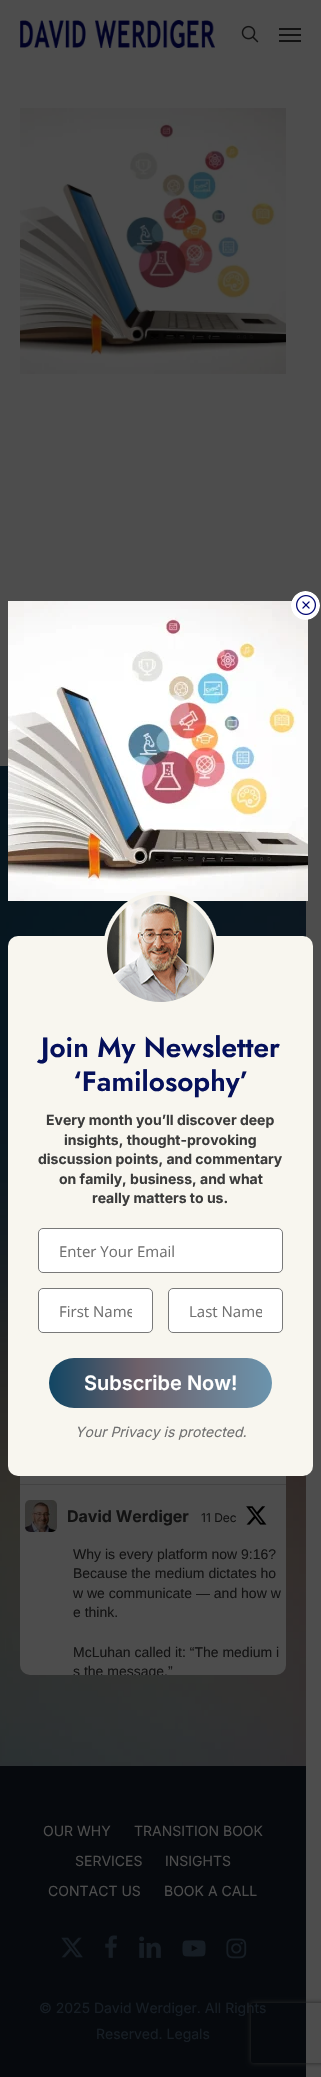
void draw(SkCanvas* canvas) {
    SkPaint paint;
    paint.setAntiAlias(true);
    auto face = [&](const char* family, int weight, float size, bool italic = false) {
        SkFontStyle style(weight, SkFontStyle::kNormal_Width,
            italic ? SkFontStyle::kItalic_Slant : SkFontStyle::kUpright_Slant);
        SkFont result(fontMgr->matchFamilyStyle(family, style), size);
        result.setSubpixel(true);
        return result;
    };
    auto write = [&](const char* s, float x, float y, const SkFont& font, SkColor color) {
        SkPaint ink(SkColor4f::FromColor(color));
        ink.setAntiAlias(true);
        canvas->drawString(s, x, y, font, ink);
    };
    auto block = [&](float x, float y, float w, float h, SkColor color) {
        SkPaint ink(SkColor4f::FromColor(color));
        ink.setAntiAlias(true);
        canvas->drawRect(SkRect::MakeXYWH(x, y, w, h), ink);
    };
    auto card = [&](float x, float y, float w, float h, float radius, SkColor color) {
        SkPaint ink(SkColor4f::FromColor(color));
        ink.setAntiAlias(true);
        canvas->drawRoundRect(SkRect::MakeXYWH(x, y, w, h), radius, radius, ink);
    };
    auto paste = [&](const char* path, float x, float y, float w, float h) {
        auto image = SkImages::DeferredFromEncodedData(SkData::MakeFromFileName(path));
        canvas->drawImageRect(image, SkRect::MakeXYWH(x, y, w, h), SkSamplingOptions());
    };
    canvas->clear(SkColorSetRGB(77, 77, 77));
    paste("pic1.png", 20, 20, 195, 28);
    paste("pic2.png", 241, 25, 18, 18);
    block(279, 28, 22, 2, SkColorSetRGB(18, 18, 18));
    block(279, 40, 22, 2, SkColorSetRGB(18, 18, 18));
    block(279, 34, 22, 2, SkColorSetRGB(18, 18, 18));
    paste("pic7.png", 0, 766, 306, 1000);
    paste("pic4.png", 8, 601, 300, 300);
    paste("pic3.png", 291, 591, 29, 29);
    card(20, 1335, 266, 340, 10, SkColorSetRGB(77, 77, 77));
    card(8, 936, 305, 540, 10, SkColorSetRGB(248, 246, 239));
    paste("pic5.png", 104, 891, 113, 111);
    auto kFont1 = face("Jost", 600, 28);
    write("Join My Newsletter", 41, 1057, kFont1, SkColorSetRGB(5, 16, 91));
    write("‘Familosophy’", 73, 1091, kFont1, SkColorSetRGB(5, 16, 91));
    auto kFont2 = face("Inter", 700, 14);
    write("Every month you’ll discover deep", 46, 1125, kFont2, SkColorSetRGB(60, 60, 60));
    write("insights, thought-provoking", 64, 1145, kFont2, SkColorSetRGB(60, 60, 60));
    write("discussion points, and commentary", 38, 1164, kFont2, SkColorSetRGB(60, 60, 60));
    write("on family, business, and what", 59, 1184, kFont2, SkColorSetRGB(60, 60, 60));
    write("really matters to us.", 92, 1203, kFont2, SkColorSetRGB(60, 60, 60));
    paint.setColor(SK_ColorWHITE);
    canvas->drawRoundRect(SkRect::MakeXYWH(38.5f, 1228.5f, 244, 44), 4.5f, 4.5f, paint);
    paint.setStyle(SkPaint::kStroke_Style);
    paint.setStrokeWidth(1);
    paint.setColor(SkColorSetRGB(121, 121, 121));
    canvas->drawRoundRect(SkRect::MakeXYWH(38.5f, 1228.5f, 244, 44), 4.5f, 4.5f, paint);
    auto kFont3 = face("Open Sans", 400, 15);
    write("Enter Your Email", 59, 1257, kFont3, SkColorSetRGB(113, 113, 113));
    paint.setStyle(SkPaint::kFill_Style);
    paint.setColor(SK_ColorWHITE);
    canvas->drawRoundRect(SkRect::MakeXYWH(38.5f, 1288.5f, 114, 44), 4.5f, 4.5f, paint);
    paint.setStyle(SkPaint::kStroke_Style);
    paint.setColor(SkColorSetRGB(121, 121, 121));
    canvas->drawRoundRect(SkRect::MakeXYWH(38.5f, 1288.5f, 114, 44), 4.5f, 4.5f, paint);
    canvas->save();
    canvas->clipRect(SkRect::MakeXYWH(59, 1301, 73, 20));
    write("First Name", 59, 1317, kFont3, SkColorSetRGB(113, 113, 113));
    canvas->restore();
    paint.setStyle(SkPaint::kFill_Style);
    paint.setColor(SK_ColorWHITE);
    canvas->drawRoundRect(SkRect::MakeXYWH(168.5f, 1288.5f, 114, 44), 4.5f, 4.5f, paint);
    paint.setStyle(SkPaint::kStroke_Style);
    paint.setColor(SkColorSetRGB(121, 121, 121));
    canvas->drawRoundRect(SkRect::MakeXYWH(168.5f, 1288.5f, 114, 44), 4.5f, 4.5f, paint);
    canvas->save();
    canvas->clipRect(SkRect::MakeXYWH(189, 1301, 73, 20));
    write("Last Name", 189, 1317, kFont3, SkColorSetRGB(113, 113, 113));
    canvas->restore();
    paint.setStyle(SkPaint::kFill_Style);
    {
        const SkColor colors[] = {SkColorSetRGB(17, 70, 100), SkColorSetRGB(110, 96, 105), SkColorSetRGB(107, 148, 173)};
        const float stops[] = {0.5f, 0.7f, 1};
        const SkPoint ends[] = {{-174, 1383}, {272, 1383}};
        paint.setShader(SkGradientShader::MakeLinear(ends, colors, stops, 3, SkTileMode::kClamp));
        paint.setAlpha(255);
    }
    canvas->drawRoundRect(SkRect::MakeXYWH(49, 1358, 223, 50), 25, 25, paint);
    auto kFont4 = face("Inter", 600, 20);
    write("Subscribe Now!", 84, 1390, kFont4, SK_ColorWHITE);
    auto kFont5 = face("Inter", 400, 14, true);
    write("Your Privacy is protected.", 75, 1437, kFont5, SkColorSetRGB(113, 113, 113));
    paste("pic6.png", 20, 108, 266, 266);
    block(20, 1484, 266, 1, SkColorSetRGB(66, 66, 66));
    paste("pic8.png", 25, 1500, 32, 32);
    auto kFont6 = face("Inter", 700, 16);
    write("David Werdiger", 67, 1522, kFont6, SkColorSetRGB(18, 18, 18));
    auto kFont7 = face("Inter", 400, 12);
    write("11 Dec", 201, 1522, kFont7, SkColorSetRGB(18, 18, 18));
    paste("pic9.png", 246, 1506, 21, 19);
    auto kFont8 = face("Liberation Sans", 400, 14);
    write("Why is every platform now 9:16?", 73, 1559, kFont8, SkColorSetRGB(18, 18, 18));
    write("Because the medium dictates ho", 73, 1578, kFont8, SkColorSetRGB(18, 18, 18));
    write("w we communicate — and how w", 73, 1598, kFont8, SkColorSetRGB(18, 18, 18));
    write("e think.", 73, 1617, kFont8, SkColorSetRGB(18, 18, 18));
    write("McLuhan called it: “The medium i", 73, 1657, kFont8, SkColorSetRGB(18, 18, 18));
    canvas->save();
    canvas->clipPath(SkPathBuilder().moveTo(30, 1335).lineTo(276, 1335).cubicTo(281.5f, 1335, 286, 1339.5f, 286, 1345).lineTo(286, 1665).cubicTo(286, 1670.5f, 281.5f, 1675, 276, 1675).lineTo(30, 1675).cubicTo(24.5f, 1675, 20, 1670.5f, 20, 1665).lineTo(20, 1345).cubicTo(20, 1339.5f, 24.5f, 1335, 30, 1335).close().detach(), true);
    write("s the message.”", 73, 1676, kFont8, SkColorSetRGB(18, 18, 18));
    canvas->restore();
    block(0, 1766, 306, 311, SkColorSetRGB(6, 9, 13));
    auto kFont9 = face("Inter", 400, 14);
    write("OUR WHY", 43, 1836, kFont9, SkColorSetRGB(77, 77, 77));
    write("TRANSITION BOOK", 134, 1836, kFont9, SkColorSetRGB(77, 77, 77));
    write("SERVICES", 75, 1866, kFont9, SkColorSetRGB(77, 77, 77));
    write("INSIGHTS", 165, 1866, kFont9, SkColorSetRGB(77, 77, 77));
    write("CONTACT US", 48, 1896, kFont9, SkColorSetRGB(77, 77, 77));
    write("BOOK A CALL", 164, 1896, kFont9, SkColorSetRGB(77, 77, 77));
    paste("pic10.png", 61, 1937, 22, 21);
    paste("pic11.png", 105, 1935, 12, 23);
    paste("pic12.png", 139, 1936, 22, 22);
    paste("pic13.png", 182, 1940, 24, 17);
    paste("pic14.png", 226, 1938, 21, 21);
    write("© 2025 David Werdiger. All Rights", 39, 2013, kFont9, SkColorSetRGB(22, 29, 36));
    write("Reserved. Legals", 96, 2039, kFont9, SkColorSetRGB(22, 29, 36));
    canvas->save();
    canvas->clipPath(SkPathBuilder(SkPathFillType::kEvenOdd).moveTo(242, 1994).lineTo(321, 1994).lineTo(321, 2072).lineTo(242, 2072).close().moveTo(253, 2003).lineTo(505, 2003).cubicTo(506, 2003, 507, 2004, 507, 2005).lineTo(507, 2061).cubicTo(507, 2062, 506, 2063, 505, 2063).lineTo(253, 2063).cubicTo(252, 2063, 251, 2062, 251, 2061).lineTo(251, 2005).cubicTo(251, 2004, 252, 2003, 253, 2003).close().detach(), true);
    paint.setShader(nullptr);
    paint.setColor(SkColorSetRGB(38, 38, 38));
    paint.setMaskFilter(SkMaskFilter::MakeBlur(kNormal_SkBlurStyle, 2.5f));
    canvas->drawRoundRect(SkRect::MakeXYWH(251, 2003, 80, 60), 2, 2, paint);
    paint.setMaskFilter(nullptr);
    canvas->restore();
}
